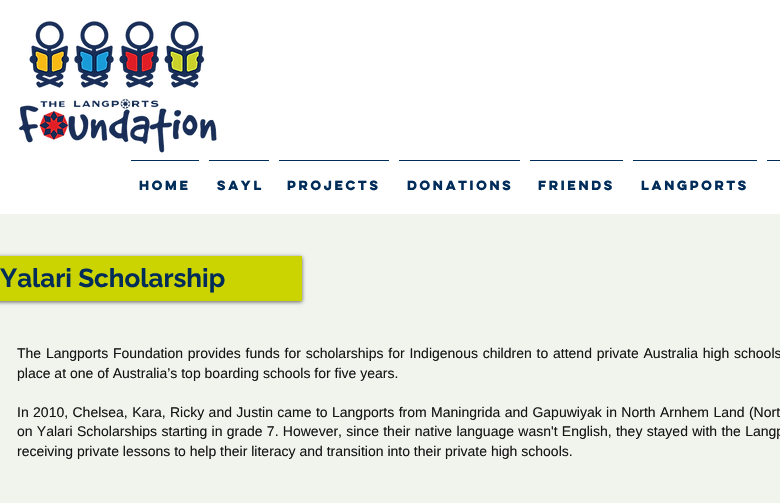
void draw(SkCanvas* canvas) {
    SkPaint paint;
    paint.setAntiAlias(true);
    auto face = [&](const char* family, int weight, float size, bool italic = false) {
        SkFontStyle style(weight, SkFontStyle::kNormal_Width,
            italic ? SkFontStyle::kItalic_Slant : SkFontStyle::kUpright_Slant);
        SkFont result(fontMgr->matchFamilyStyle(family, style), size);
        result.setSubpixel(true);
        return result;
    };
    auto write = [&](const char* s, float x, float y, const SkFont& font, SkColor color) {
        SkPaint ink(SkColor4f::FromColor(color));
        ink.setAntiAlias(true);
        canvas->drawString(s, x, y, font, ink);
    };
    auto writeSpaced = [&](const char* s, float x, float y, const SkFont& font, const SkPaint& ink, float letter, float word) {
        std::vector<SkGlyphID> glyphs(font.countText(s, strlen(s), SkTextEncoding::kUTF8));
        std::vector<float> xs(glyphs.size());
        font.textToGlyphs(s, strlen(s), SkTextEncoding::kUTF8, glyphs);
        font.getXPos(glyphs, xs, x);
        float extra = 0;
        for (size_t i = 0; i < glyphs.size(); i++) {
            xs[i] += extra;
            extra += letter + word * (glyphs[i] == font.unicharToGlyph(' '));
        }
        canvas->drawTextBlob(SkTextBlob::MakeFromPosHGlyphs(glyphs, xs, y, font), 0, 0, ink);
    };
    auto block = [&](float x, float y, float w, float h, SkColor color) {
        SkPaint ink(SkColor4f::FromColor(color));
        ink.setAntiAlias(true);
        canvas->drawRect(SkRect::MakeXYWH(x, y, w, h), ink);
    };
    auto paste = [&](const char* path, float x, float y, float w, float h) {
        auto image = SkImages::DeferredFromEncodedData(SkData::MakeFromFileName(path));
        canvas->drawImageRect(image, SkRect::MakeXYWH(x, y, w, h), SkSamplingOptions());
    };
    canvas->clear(SK_ColorWHITE);
    paste("pic1.png", 18, 21, 199, 132);
    block(767, 160, 13, 1, SkColorSetRGB(0, 44, 90));
    block(131, 160, 68, 1, SkColorSetRGB(0, 44, 90));
    auto kFont1 = face("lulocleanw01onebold", 700, 12);
    write("Home", 139, 190, kFont1, SkColorSetRGB(0, 44, 90));
    block(209, 160, 60, 1, SkColorSetRGB(0, 44, 90));
    write("SAYL", 217, 190, kFont1, SkColorSetRGB(0, 44, 90));
    block(279, 160, 110, 1, SkColorSetRGB(0, 44, 90));
    write("Projects", 287, 190, kFont1, SkColorSetRGB(0, 44, 90));
    block(399, 160, 121, 1, SkColorSetRGB(0, 44, 90));
    write("Donations", 407, 190, kFont1, SkColorSetRGB(0, 44, 90));
    block(530, 160, 93, 1, SkColorSetRGB(0, 44, 90));
    write("Friends", 538, 190, kFont1, SkColorSetRGB(0, 44, 90));
    block(633, 160, 124, 1, SkColorSetRGB(0, 44, 90));
    write("Langports", 641, 190, kFont1, SkColorSetRGB(0, 44, 90));
    block(0, 214, 780, 289, SkColorSetRGB(241, 244, 237));
    paint.setColor(SkColorSetARGB(153, 0, 0, 0));
    paint.setMaskFilter(SkMaskFilter::MakeBlur(kNormal_SkBlurStyle, 2));
    canvas->drawRect(SkRect::MakeXYWH(-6, 257, 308, 45), paint);
    paint.setMaskFilter(nullptr);
    block(0, 256, 302, 45, SkColorSetRGB(203, 211, 0));
    auto kFont2 = face("Raleway", 700, 26);
    write("Yalari Scholarship", 0, 287, kFont2, SkColorSetRGB(0, 44, 90));
    auto kFont3 = face("Liberation Sans", 400, 14);
    paint.setColor(SkColorSetRGB(22, 21, 21));
    writeSpaced("The Langports Foundation provides funds for scholarships for Indigenous children to attend private Australia high schools", 17, 358, kFont3, paint, 0, 0.9f);
    write("place at one of Australia’s top boarding schools for five years.", 17, 378, kFont3, SkColorSetRGB(22, 21, 21));
    writeSpaced("In 2010, Chelsea, Kara, Ricky and Justin came to Langports from Maningrida and Gapuwiyak in North Arnhem Land (Nort", 17, 417, kFont3, paint, 0, 0.5f);
    writeSpaced("on Yalari Scholarships starting in grade 7. However, since their native language wasn't English, they stayed with the Langp", 17, 436, kFont3, paint, 0, 0.4f);
    write("receiving private lessons to help their literacy and transition into their private high schools.", 17, 456, kFont3, SkColorSetRGB(22, 21, 21));
}
